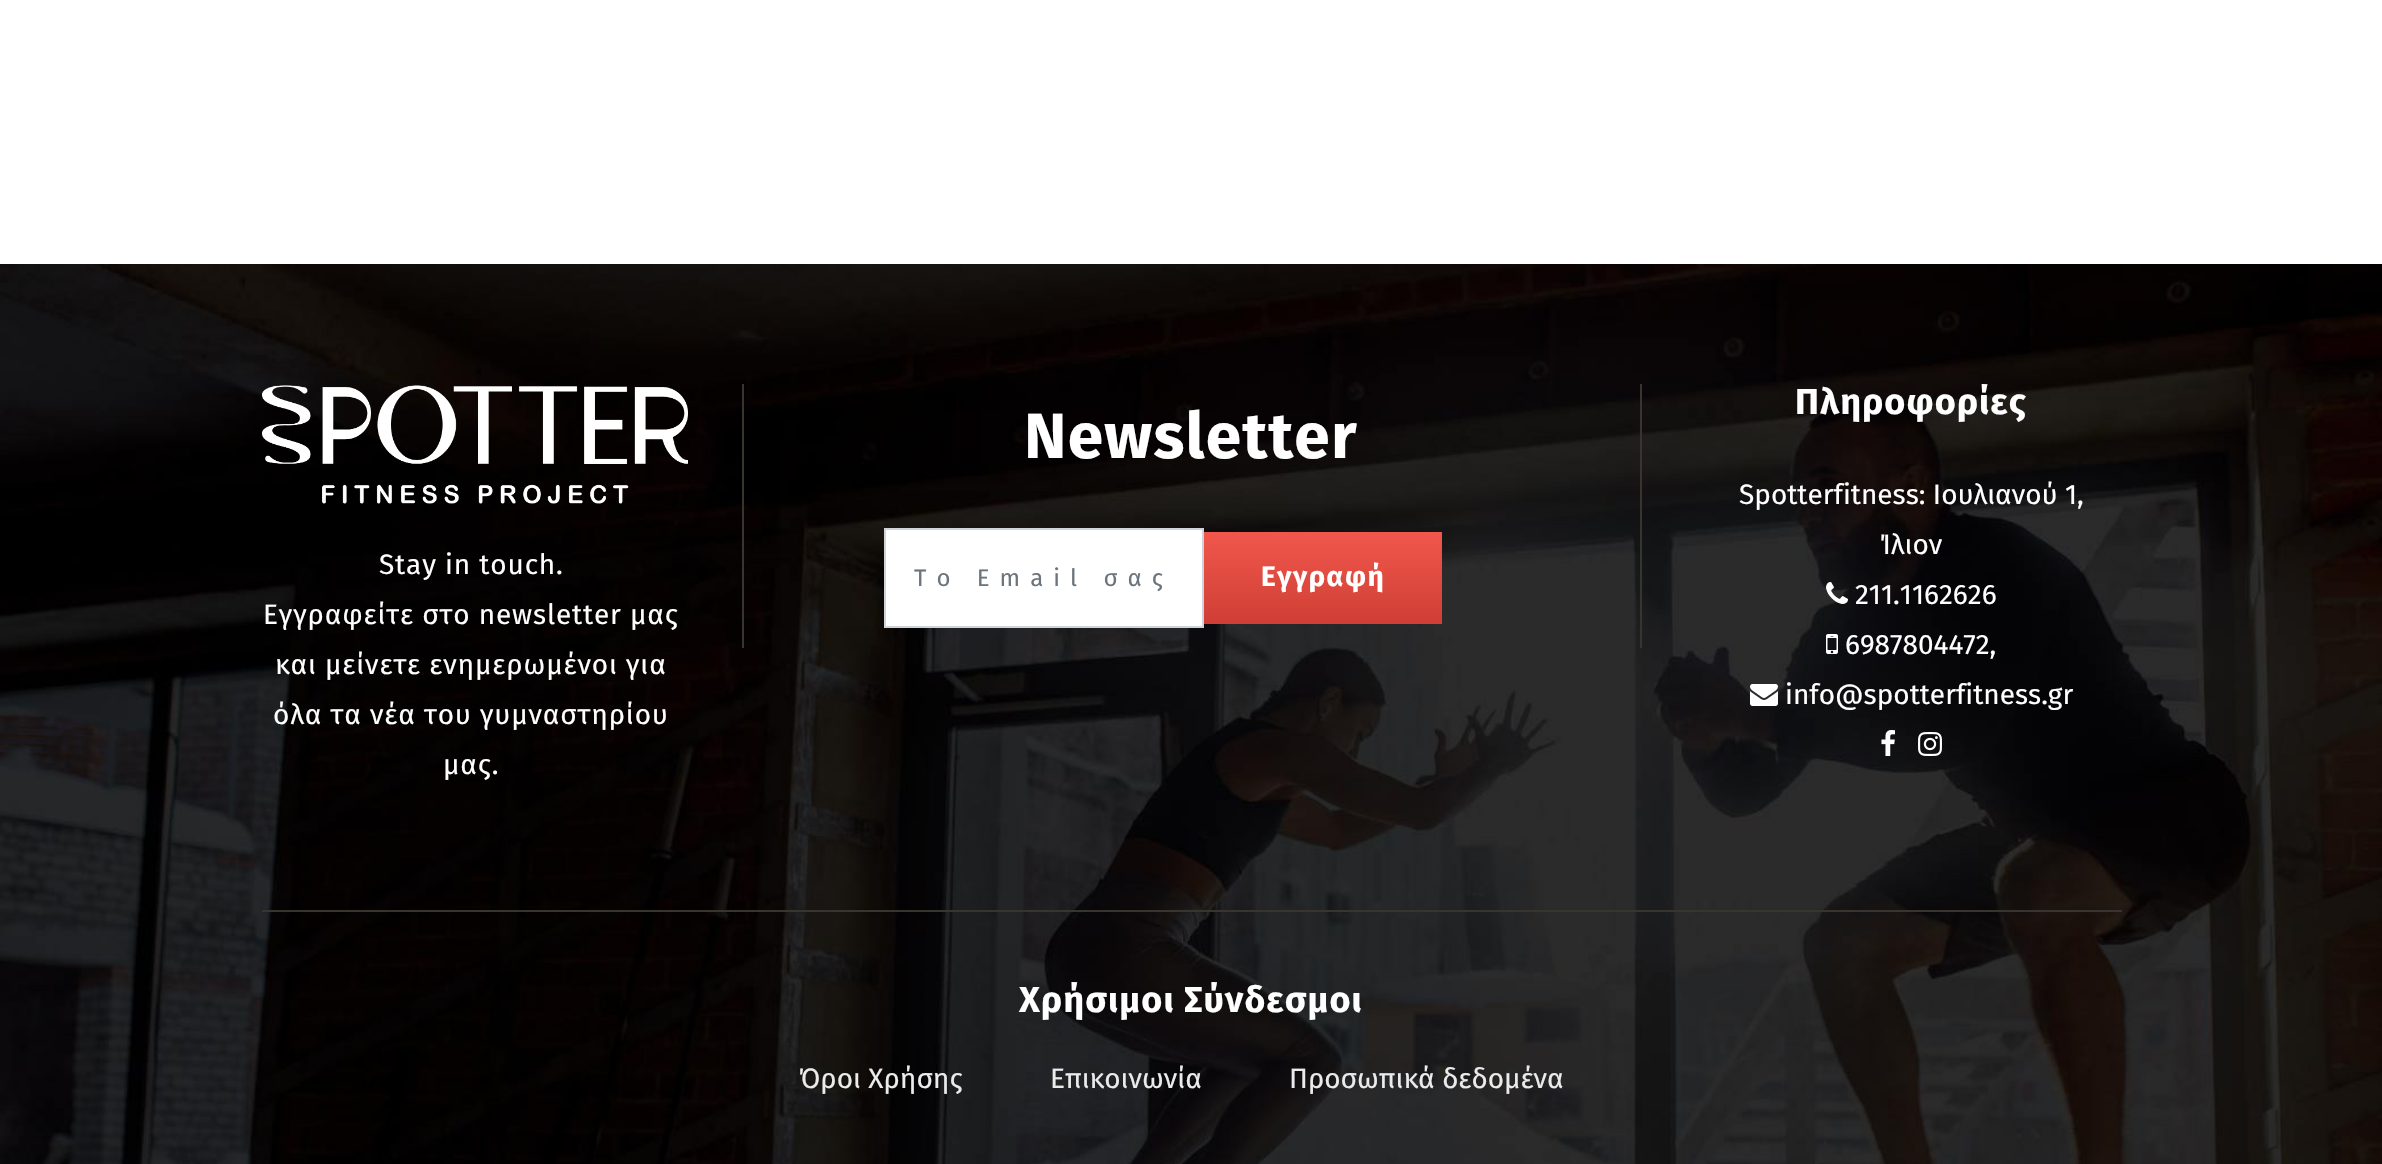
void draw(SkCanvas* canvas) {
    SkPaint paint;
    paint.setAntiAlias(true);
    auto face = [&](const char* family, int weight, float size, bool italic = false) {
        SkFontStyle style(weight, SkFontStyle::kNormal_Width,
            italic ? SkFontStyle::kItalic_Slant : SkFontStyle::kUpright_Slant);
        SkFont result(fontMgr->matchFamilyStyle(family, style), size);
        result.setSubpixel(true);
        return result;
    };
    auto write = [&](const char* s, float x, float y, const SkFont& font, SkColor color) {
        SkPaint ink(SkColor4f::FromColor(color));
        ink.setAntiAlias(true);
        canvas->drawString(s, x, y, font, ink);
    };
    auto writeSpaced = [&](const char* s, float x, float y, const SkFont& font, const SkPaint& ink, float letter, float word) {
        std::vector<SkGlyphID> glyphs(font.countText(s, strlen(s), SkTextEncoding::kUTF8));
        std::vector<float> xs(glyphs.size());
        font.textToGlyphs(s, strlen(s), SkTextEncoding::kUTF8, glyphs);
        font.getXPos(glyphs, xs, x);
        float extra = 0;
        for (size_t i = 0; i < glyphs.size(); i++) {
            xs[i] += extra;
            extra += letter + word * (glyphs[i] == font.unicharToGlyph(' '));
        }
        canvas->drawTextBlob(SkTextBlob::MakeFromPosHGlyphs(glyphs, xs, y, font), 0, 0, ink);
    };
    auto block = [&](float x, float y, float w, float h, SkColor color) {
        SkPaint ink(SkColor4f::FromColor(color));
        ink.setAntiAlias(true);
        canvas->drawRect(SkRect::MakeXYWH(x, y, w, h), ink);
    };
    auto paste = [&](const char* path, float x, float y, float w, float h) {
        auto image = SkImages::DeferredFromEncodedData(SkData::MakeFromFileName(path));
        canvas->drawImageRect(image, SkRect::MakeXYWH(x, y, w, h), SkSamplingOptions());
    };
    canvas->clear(SK_ColorWHITE);
    paste("pic1.png", 0, 264, 2382, 900);
    block(262, 910, 1860, 2, SkColorSetRGB(56, 53, 47));
    block(1640, 384, 2, 264, SkColorSetRGB(56, 53, 47));
    block(742, 384, 2, 264, SkColorSetRGB(56, 53, 47));
    auto kFont1 = face("Fira Sans", 700, 64);
    paint.setColor(SK_ColorWHITE);
    writeSpaced("Newsletter", 1024, 458, kFont1, paint, 1.25f, 0);
    canvas->drawRect(SkRect::MakeXYWH(885, 529, 318, 98), paint);
    paint.setStyle(SkPaint::kStroke_Style);
    paint.setStrokeWidth(2);
    paint.setColor(SkColorSetRGB(206, 212, 218));
    canvas->drawRect(SkRect::MakeXYWH(885, 529, 318, 98), paint);
    auto kFont2 = face("Fira Sans", 400, 24);
    paint.setStyle(SkPaint::kFill_Style);
    paint.setColor(SkColorSetRGB(108, 117, 125));
    writeSpaced("Το Email σας", 914, 586, kFont2, paint, 10, 0);
    {
        const SkColor colors[] = {SkColorSetRGB(241, 87, 76), SkColorSetRGB(207, 63, 53)};
        const float stops[] = {0, 0.99f};
        const SkPoint ends[] = {{1561, 532}, {1561, 624}};
        paint.setShader(SkGradientShader::MakeLinear(ends, colors, stops, 2, SkTileMode::kClamp));
        paint.setAlpha(255);
    }
    canvas->drawRect(SkRect::MakeXYWH(1204, 532, 238, 92), paint);
    auto kFont3 = face("Fira Sans", 700, 28);
    paint.setShader(nullptr);
    paint.setColor(SK_ColorWHITE);
    writeSpaced("Εγγραφή", 1261, 586, kFont3, paint, 1.5f, 0);
    auto kFont4 = face("Fira Sans", 700, 36);
    writeSpaced("Πληροφορίες", 1795, 414, kFont4, paint, 1.1f, 0);
    auto kFont5 = face("Fira Sans", 400, 28);
    write("Spotterfitness: Ιουλιανού 1,", 1739, 504, kFont5, SK_ColorWHITE);
    write("Ίλιον", 1880, 554, kFont5, SK_ColorWHITE);
    paste("pic2.png", 1826, 582, 22, 22);
    write("211.1162626", 1855, 604, kFont5, SK_ColorWHITE);
    paste("pic3.png", 1826, 634, 12, 20);
    write("6987804472,", 1845, 654, kFont5, SK_ColorWHITE);
    paste("pic4.png", 1750, 684, 28, 22);
    write("info@spotterfitness.gr", 1785, 704, kFont5, SK_ColorWHITE);
    paste("pic5.png", 1881, 730, 14, 26);
    paste("pic6.png", 1918, 732, 24, 24);
    paste("pic7.png", 262, 385, 426, 119);
    writeSpaced("Stay in touch.", 379, 574, kFont5, paint, 0.85f, 0);
    writeSpaced("Εγγραφείτε στο newsletter μας", 263, 624, kFont5, paint, 0.85f, 0);
    writeSpaced("και μείνετε ενημερωμένοι για", 275, 674, kFont5, paint, 0.85f, 0);
    writeSpaced("όλα τα νέα του γυμναστηρίου", 273, 724, kFont5, paint, 0.85f, 0);
    writeSpaced("μας.", 443, 774, kFont5, paint, 0.85f, 0);
    writeSpaced("Χρήσιμοι Σύνδεσμοι", 1019, 1012, kFont4, paint, 1.1f, 0);
    write("Όροι Χρήσης", 799, 1088, kFont5, SkColorSetRGB(235, 235, 235));
    write("Επικοινωνία", 1050, 1088, kFont5, SkColorSetRGB(235, 235, 235));
    write("Προσωπικά δεδομένα", 1289, 1088, kFont5, SkColorSetRGB(235, 235, 235));
}
